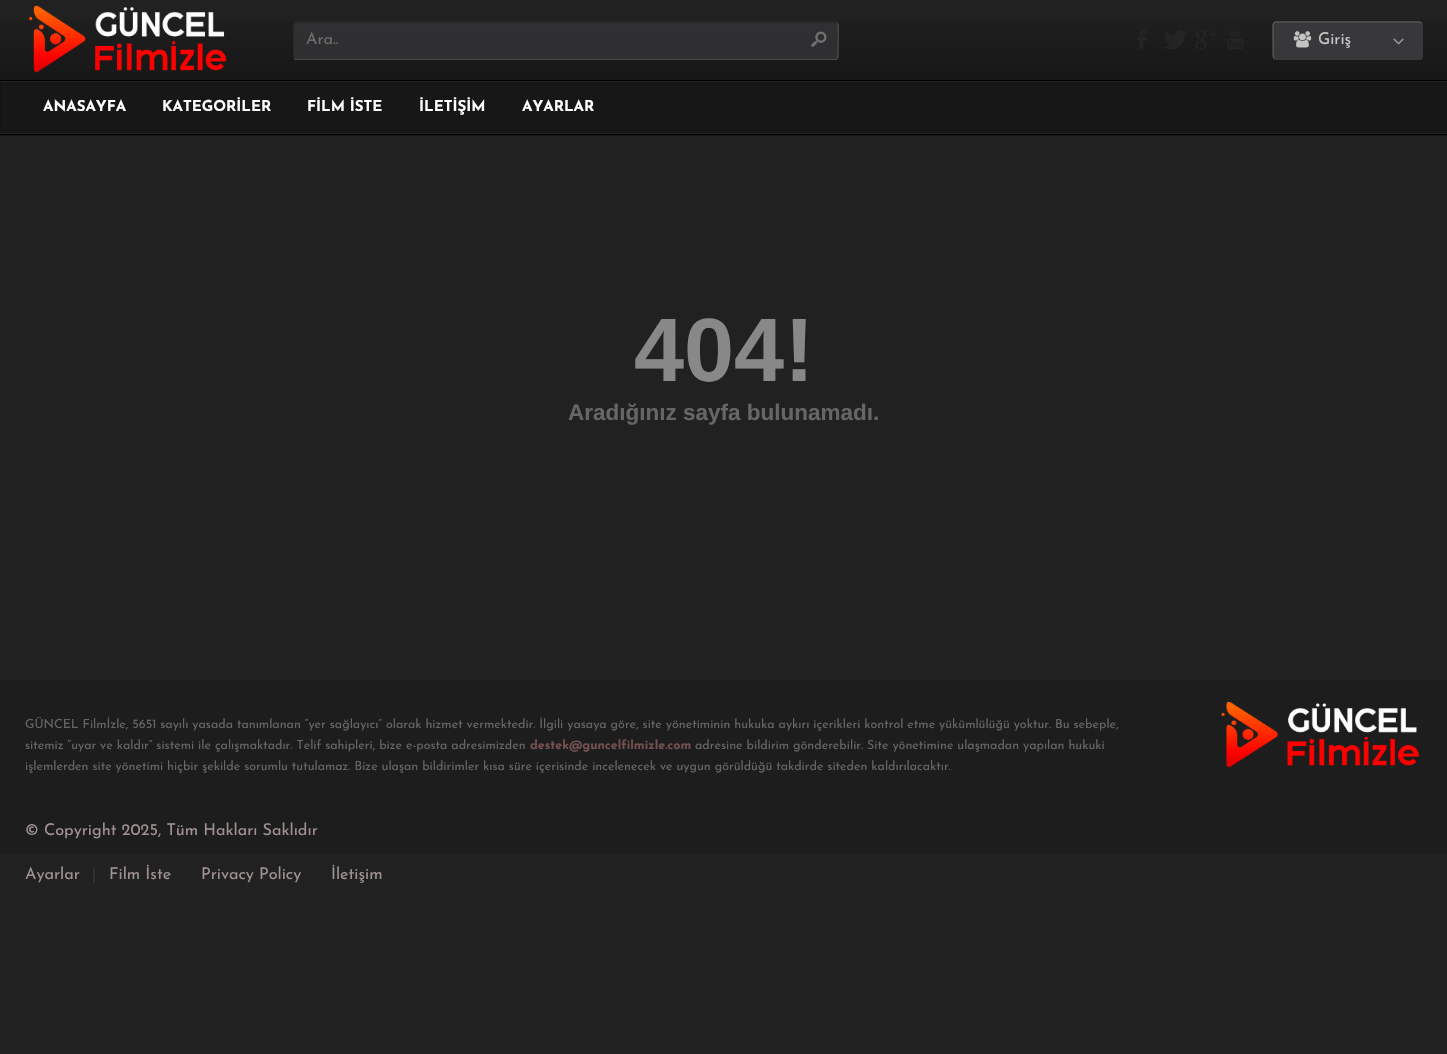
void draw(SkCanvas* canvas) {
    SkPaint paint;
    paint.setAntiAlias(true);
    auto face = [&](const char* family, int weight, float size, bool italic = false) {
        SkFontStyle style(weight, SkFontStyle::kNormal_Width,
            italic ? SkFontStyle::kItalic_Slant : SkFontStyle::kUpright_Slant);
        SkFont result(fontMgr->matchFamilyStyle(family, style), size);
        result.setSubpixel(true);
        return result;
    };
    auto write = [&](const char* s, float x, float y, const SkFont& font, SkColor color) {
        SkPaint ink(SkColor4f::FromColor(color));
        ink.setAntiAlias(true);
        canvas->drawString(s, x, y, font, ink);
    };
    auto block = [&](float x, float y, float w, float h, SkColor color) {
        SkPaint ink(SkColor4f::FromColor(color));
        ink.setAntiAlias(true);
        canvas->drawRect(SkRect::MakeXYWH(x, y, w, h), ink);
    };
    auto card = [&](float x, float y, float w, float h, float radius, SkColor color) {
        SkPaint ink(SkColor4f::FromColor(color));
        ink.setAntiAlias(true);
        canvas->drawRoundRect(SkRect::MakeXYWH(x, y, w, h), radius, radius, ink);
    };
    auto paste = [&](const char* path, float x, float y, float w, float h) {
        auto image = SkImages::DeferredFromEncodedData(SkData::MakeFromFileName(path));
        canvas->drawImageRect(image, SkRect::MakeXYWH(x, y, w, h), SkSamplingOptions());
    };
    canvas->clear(SkColorSetRGB(33, 33, 33));
    {
        const SkColor colors[] = {SkColorSetRGB(33, 33, 33), SkColorSetRGB(23, 23, 23)};
        const float stops[] = {0, 1};
        const SkPoint ends[] = {{724, 0}, {724, 80}};
        paint.setShader(SkGradientShader::MakeLinear(ends, colors, stops, 2, SkTileMode::kClamp));
        paint.setAlpha(255);
    }
    canvas->drawRect(SkRect::MakeXYWH(0, 20, 1447, 60), paint);
    paste("pic1.png", 28, 5, 199, 68);
    card(293, 21, 546, 39, 4, SkColorSetARGB(191, 53, 53, 56));
    paint.setStyle(SkPaint::kStroke_Style);
    paint.setStrokeWidth(1.2f);
    paint.setShader(nullptr);
    paint.setColor(SkColorSetRGB(32, 32, 32));
    canvas->drawPath(SkPathBuilder().moveTo(294, 23).lineTo(296, 22).lineTo(835, 22).lineTo(837, 23).detach(), paint);
    canvas->save();
    canvas->clipRect(SkRect::MakeXYWH(293, 21, 546, 39));
    paint.setColor(SkColorSetARGB(191, 82, 82, 82));
    canvas->drawPath(SkPathBuilder().moveTo(837, 23).cubicTo(839.5f, 25, 838, 42, 838, 46).lineTo(838, 51).cubicTo(838, 53.5f, 839, 58.5f, 835.5f, 59.5f).lineTo(296, 59.5f).lineTo(294, 58.5f).detach(), paint);
    paint.setColor(SkColorSetARGB(191, 26, 26, 26));
    canvas->drawPath(SkPathBuilder().moveTo(294, 58.5f).cubicTo(293.5f, 58, 293, 57, 293, 56).lineTo(293, 25).cubicTo(293, 24, 293.5f, 23.5f, 294, 23).detach(), paint);
    canvas->restore();
    auto kFont1 = face("Josefin Sans", 400, 16.25f);
    write("Ara..", 306, 44, kFont1, SkColorSetRGB(109, 109, 109));
    paste("pic2.png", 811, 31, 16, 16);
    paste("pic3.png", 1137, 30, 10, 19);
    paste("pic4.png", 1165, 30, 21, 19);
    paste("pic5.png", 1195, 30, 22, 19);
    paste("pic6.png", 1227, 30, 17, 19);
    card(1273, 21, 150, 39, 4, SkColorSetRGB(56, 56, 59));
    paint.setColor(SkColorSetRGB(56, 56, 59));
    canvas->drawPath(SkPathBuilder().moveTo(1421, 23).cubicTo(1422.5f, 24.5f, 1422, 28.5f, 1422, 30).lineTo(1422, 51).cubicTo(1422, 53.5f, 1423, 59.5f, 1419, 59.5f).lineTo(1276, 59.5f).lineTo(1274, 58.5f).detach(), paint);
    paint.setColor(SkColorSetRGB(90, 90, 92));
    canvas->drawPath(SkPathBuilder().moveTo(1274, 58.5f).cubicTo(1272.5f, 56.5f, 1273, 52.5f, 1273, 51).lineTo(1273, 30).cubicTo(1273, 28, 1272, 22, 1276, 22).lineTo(1419, 22).lineTo(1421, 23).detach(), paint);
    paste("pic7.png", 1293, 31, 19, 17);
    write("Giriş", 1318, 44, kFont1, SkColorSetRGB(196, 196, 196));
    paste("pic8.png", 1393, 38, 11, 7);
    paint.setStyle(SkPaint::kFill_Style);
    paint.setColor(SkColorSetARGB(107, 0, 0, 0));
    paint.setMaskFilter(SkMaskFilter::MakeBlur(kNormal_SkBlurStyle, 0.5f));
    canvas->drawRect(SkRect::MakeXYWH(0, 81, 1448, 55), paint);
    paint.setMaskFilter(nullptr);
    block(1, 82, 1446, 51, SkColorSetRGB(23, 23, 23));
    block(0, 80, 1447, 1, SK_ColorBLACK);
    block(0, 134, 1447, 1, SK_ColorBLACK);
    block(0, 81, 1447, 1, SkColorSetRGB(35, 35, 35));
    block(0, 133, 1447, 1, SkColorSetRGB(35, 35, 35));
    auto kFont2 = face("Josefin Sans", 700, 15);
    write("ANASAYFA", 43, 111, kFont2, SK_ColorWHITE);
    write("KATEGORİLER", 162, 111, kFont2, SK_ColorWHITE);
    write("FİLM İSTE", 307, 111, kFont2, SK_ColorWHITE);
    write("İLETİŞİM", 419, 111, kFont2, SK_ColorWHITE);
    write("AYARLAR", 522, 111, kFont2, SK_ColorWHITE);
    auto kFont3 = face("Liberation Sans", 700, 90);
    write("404!", 634, 381, kFont3, SkColorSetRGB(136, 136, 136));
    auto kFont4 = face("Liberation Sans", 700, 22.5f);
    write("Aradığınız sayfa bulunamadı.", 568, 420, kFont4, SkColorSetRGB(102, 102, 102));
    block(0, 680, 1447, 174, SkColorSetRGB(29, 29, 29));
    auto kFont5 = face("Josefin Sans", 400, 12.5f);
    write("GÜNCEL Filmİzle, 5651 sayılı yasada tanımlanan “yer sağlayıcı” olarak hizmet vermektedir. İlgili yasaya göre, site yönetiminin hukuka aykırı içerikleri kontrol etme yükümlülüğü yoktur. Bu sebeple,", 25, 728, kFont5, SkColorSetRGB(102, 102, 102));
    write("sitemiz “uyar ve kaldır” sistemi ile çalışmaktadır. Telif sahipleri, bize e-posta adresimizden", 25, 749, kFont5, SkColorSetRGB(102, 102, 102));
    auto kFont6 = face("Josefin Sans", 700, 12.5f);
    write("destek@guncelfilmizle.com", 530, 749, kFont6, SkColorSetRGB(117, 80, 80));
    write("adresine bildirim gönderebilir. Site yönetimine ulaşmadan yapılan hukuki", 695, 749, kFont5, SkColorSetRGB(102, 102, 102));
    write("işlemlerden site yönetimi hiçbir şekilde sorumlu tutulamaz. Bize ulaşan bildirimler kısa süre içerisinde incelenecek ve uygun görüldüğü takdirde siteden kaldırılacaktır.", 25, 770, kFont5, SkColorSetRGB(102, 102, 102));
    write("© Copyright 2025, Tüm Hakları Saklıdır", 25, 835, kFont1, SkColorSetRGB(161, 146, 146));
    paste("pic9.png", 1221, 701, 198, 67);
    write("Ayarlar", 25, 879, kFont1, SkColorSetRGB(161, 146, 146));
    write("|", 92, 879, kFont1, SkColorSetRGB(51, 51, 51));
    write("Film İste", 109, 879, kFont1, SkColorSetRGB(161, 146, 146));
    write("Privacy Policy", 201, 879, kFont1, SkColorSetRGB(161, 146, 146));
    write("İletişim", 331, 879, kFont1, SkColorSetRGB(161, 146, 146));
}
